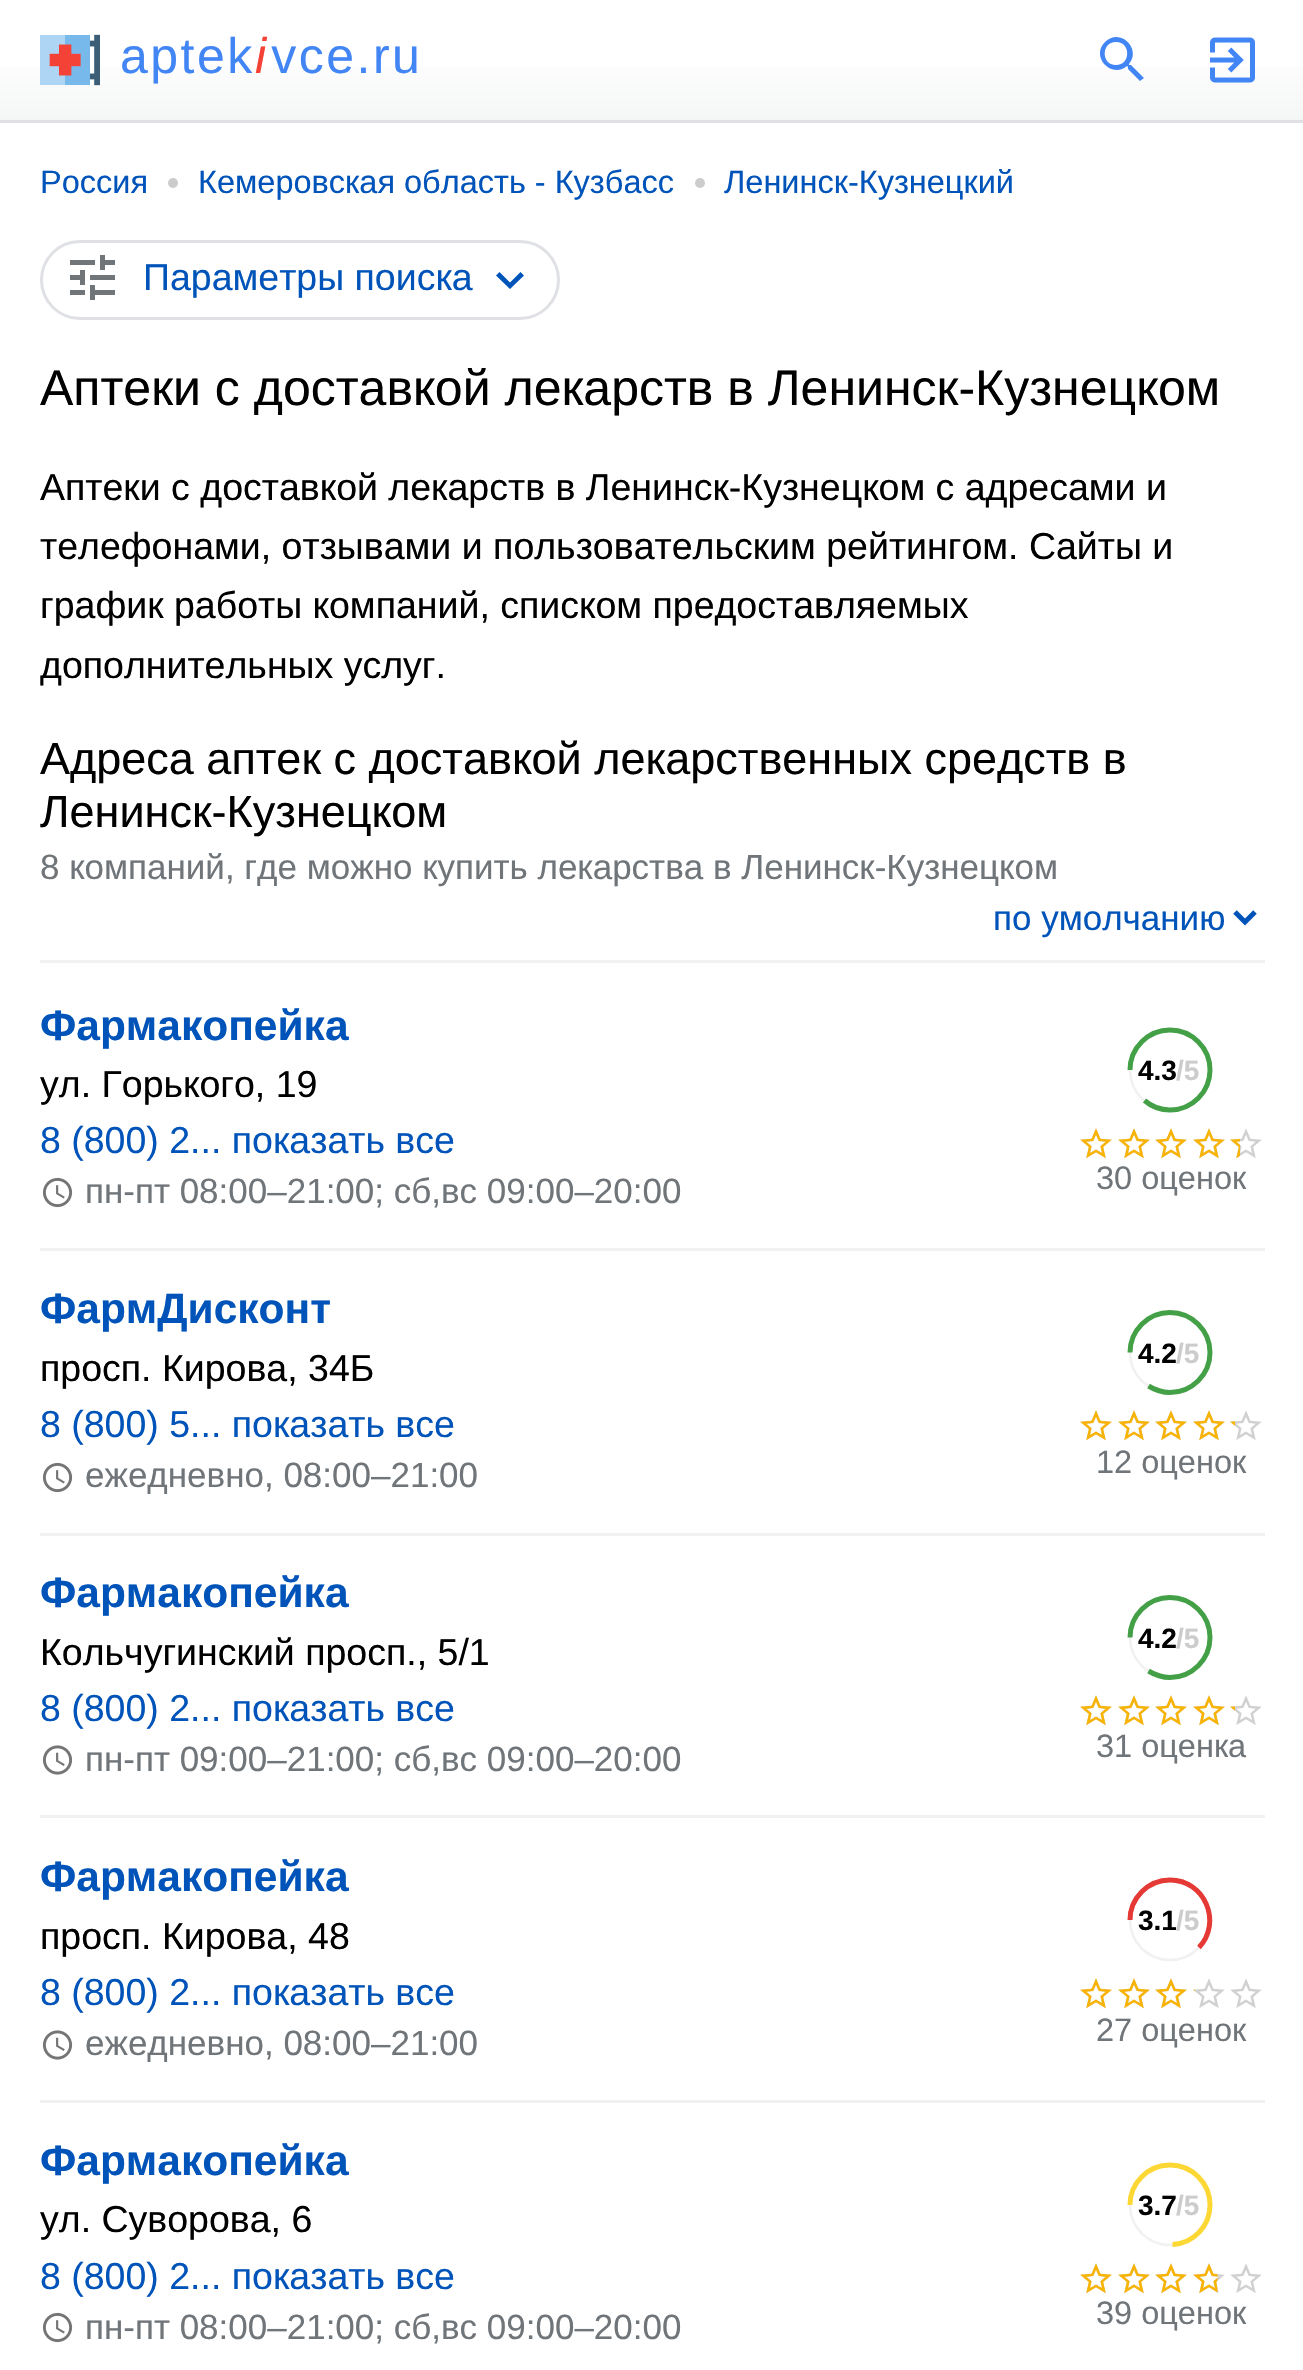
void draw(SkCanvas* canvas) {
    SkPaint paint;
    paint.setAntiAlias(true);
    auto face = [&](const char* family, int weight, float size, bool italic = false) {
        SkFontStyle style(weight, SkFontStyle::kNormal_Width,
            italic ? SkFontStyle::kItalic_Slant : SkFontStyle::kUpright_Slant);
        SkFont result(fontMgr->matchFamilyStyle(family, style), size);
        result.setSubpixel(true);
        return result;
    };
    auto write = [&](const char* s, float x, float y, const SkFont& font, SkColor color) {
        SkPaint ink(SkColor4f::FromColor(color));
        ink.setAntiAlias(true);
        canvas->drawString(s, x, y, font, ink);
    };
    auto writeSpaced = [&](const char* s, float x, float y, const SkFont& font, const SkPaint& ink, float letter, float word) {
        std::vector<SkGlyphID> glyphs(font.countText(s, strlen(s), SkTextEncoding::kUTF8));
        std::vector<float> xs(glyphs.size());
        font.textToGlyphs(s, strlen(s), SkTextEncoding::kUTF8, glyphs);
        font.getXPos(glyphs, xs, x);
        float extra = 0;
        for (size_t i = 0; i < glyphs.size(); i++) {
            xs[i] += extra;
            extra += letter + word * (glyphs[i] == font.unicharToGlyph(' '));
        }
        canvas->drawTextBlob(SkTextBlob::MakeFromPosHGlyphs(glyphs, xs, y, font), 0, 0, ink);
    };
    auto block = [&](float x, float y, float w, float h, SkColor color) {
        SkPaint ink(SkColor4f::FromColor(color));
        ink.setAntiAlias(true);
        canvas->drawRect(SkRect::MakeXYWH(x, y, w, h), ink);
    };
    auto paste = [&](const char* path, float x, float y, float w, float h) {
        auto image = SkImages::DeferredFromEncodedData(SkData::MakeFromFileName(path));
        canvas->drawImageRect(image, SkRect::MakeXYWH(x, y, w, h), SkSamplingOptions());
    };
    canvas->clear(SK_ColorWHITE);
    {
        const SkColor colors[] = {SkColorSetRGB(245, 246, 246), SK_ColorWHITE};
        const float stops[] = {0, 0.6f};
        const SkPoint ends[] = {{653, 120}, {653, 0}};
        paint.setShader(SkGradientShader::MakeLinear(ends, colors, stops, 2, SkTileMode::kClamp));
        paint.setAlpha(255);
    }
    canvas->drawRect(SkRect::MakeXYWH(0, 66, 1303, 54), paint);
    block(0, 120, 1303, 3, SkColorSetRGB(223, 225, 229));
    paste("pic1.png", 40, 34, 60, 52);
    auto kFont1 = face("Liberation Sans", 400, 50);
    paint.setShader(nullptr);
    paint.setColor(SkColorSetRGB(66, 133, 244));
    writeSpaced("aptek vce.ru", 120, 73, kFont1, paint, 2.5f, 0);
    auto kFont2 = face("Liberation Sans", 400, 50, true);
    paint.setColor(SkColorSetRGB(244, 67, 54));
    writeSpaced("i", 255, 73, kFont2, paint, 2.5f, 0);
    paint.setColor(SkColorSetRGB(66, 133, 244));
    canvas->drawPath(SkPathBuilder().moveTo(1131, 65).lineTo(1129, 65).lineTo(1129, 64).cubicTo(1142, 49, 1120, 27, 1105, 42).cubicTo(1090, 57, 1112, 79, 1127, 66).lineTo(1128, 67).lineTo(1128, 69).lineTo(1140, 81).lineTo(1144, 78).close().moveTo(1116, 65).cubicTo(1101, 65, 1101, 42, 1116, 42).cubicTo(1131, 42, 1131, 65, 1116, 65).close().detach(), paint);
    paste("pic2.png", 1210, 37, 45, 46);
    auto kFont3 = face("Liberation Sans", 400, 32.5f);
    write("Россия", 40, 193, kFont3, SkColorSetRGB(0, 84, 185));
    paint.setColor(SkColorSetRGB(204, 204, 204));
    canvas->drawCircle(173, 183, 5, paint);
    write("Кемеровская область - Кузбасс", 198, 193, kFont3, SkColorSetRGB(0, 84, 185));
    canvas->drawCircle(700, 183, 5, paint);
    write("Ленинск-Кузнецкий", 724, 193, kFont3, SkColorSetRGB(0, 84, 185));
    paint.setStyle(SkPaint::kStroke_Style);
    paint.setStrokeWidth(3);
    paint.setColor(SkColorSetRGB(223, 225, 229));
    canvas->drawRoundRect(SkRect::MakeXYWH(41.5f, 241.5f, 517, 77), 38.5f, 38.5f, paint);
    paste("pic3.png", 70, 255, 45, 45);
    auto kFont4 = face("Liberation Sans", 400, 37.5f);
    write("Параметры поиска", 143, 290, kFont4, SkColorSetRGB(0, 84, 185));
    paint.setStyle(SkPaint::kFill_Style);
    paint.setColor(SkColorSetRGB(0, 84, 185));
    canvas->drawPath(SkPathBuilder().moveTo(520.5f, 272).lineTo(510, 282.5f).lineTo(499.5f, 272).lineTo(496, 275.5f).lineTo(510, 289).lineTo(524, 275.5f).close().detach(), paint);
    write("Аптеки с доставкой лекарств в Ленинск-Кузнецком", 40, 405, kFont1, SK_ColorBLACK);
    write("Аптеки с доставкой лекарств в Ленинск-Кузнецком с адресами и", 40, 500, kFont4, SK_ColorBLACK);
    write("телефонами, отзывами и пользовательским рейтингом. Сайты и", 40, 559, kFont4, SK_ColorBLACK);
    write("график работы компаний, списком предоставляемых", 40, 618, kFont4, SK_ColorBLACK);
    write("дополнительных услуг.", 40, 678, kFont4, SK_ColorBLACK);
    auto kFont5 = face("Liberation Sans", 400, 45);
    write("Адреса аптек с доставкой лекарственных средств в", 40, 774, kFont5, SK_ColorBLACK);
    write("Ленинск-Кузнецком", 40, 827, kFont5, SK_ColorBLACK);
    auto kFont6 = face("Liberation Sans", 400, 35);
    write("8 компаний, где можно купить лекарства в Ленинск-Кузнецком", 40, 879, kFont6, SkColorSetRGB(112, 117, 122));
    block(40, 960, 1225, 3, SkColorSetRGB(241, 241, 241));
    paint.setStyle(SkPaint::kStroke_Style);
    paint.setStrokeWidth(5);
    canvas->drawPath(SkPathBuilder().moveTo(1235, 912).lineTo(1245, 922).lineTo(1255, 912).detach(), paint);
    write("по умолчанию", 993, 930, kFont6, SkColorSetRGB(0, 84, 185));
    block(40, 1248, 1225, 3, SkColorSetRGB(241, 241, 241));
    auto kFont7 = face("Liberation Sans", 700, 42.5f);
    write("Фармакопейка", 40, 1040, kFont7, SkColorSetRGB(0, 84, 185));
    write("ул. Горького, 19", 40, 1097, kFont4, SK_ColorBLACK);
    write("8 (800) 2... показать все", 40, 1153, kFont4, SkColorSetRGB(0, 84, 185));
    paste("pic4.png", 42, 1177, 31, 31);
    write("пн-пт 08:00–21:00; сб,вс 09:00–20:00", 85, 1203, kFont6, SkColorSetRGB(112, 117, 122));
    paint.setStrokeWidth(2.5f);
    paint.setColor(SkColorSetRGB(241, 241, 241));
    canvas->drawCircle(1170, 1070, 40, paint);
    paint.setStrokeWidth(5);
    paint.setColor(SkColorSetRGB(67, 160, 71));
    canvas->drawPath(SkPathBuilder().moveTo(1170, 1030).cubicTo(1192, 1030, 1210, 1048, 1210, 1070).cubicTo(1210, 1092, 1192, 1110, 1170, 1110).cubicTo(1160.5f, 1110, 1151.5f, 1106.5f, 1144.5f, 1100.5f).moveTo(1130, 1070).cubicTo(1130, 1048, 1148, 1030, 1170, 1030).detach(), paint);
    auto kFont8 = face("Liberation Sans", 700, 28);
    write("4.3", 1138, 1080, kFont8, SK_ColorBLACK);
    write("/5", 1176, 1080, kFont8, SkColorSetRGB(204, 204, 204));
    paste("pic5.png", 1080, 1128, 182, 30);
    paste("pic6.png", 1080, 1128, 160, 31);
    write("30 оценок", 1096, 1189, kFont3, SkColorSetRGB(112, 117, 122));
    block(40, 1533, 1225, 3, SkColorSetRGB(241, 241, 241));
    write("ФармДисконт", 40, 1323, kFont7, SkColorSetRGB(0, 84, 185));
    write("просп. Кирова, 34Б", 40, 1381, kFont4, SK_ColorBLACK);
    write("8 (800) 5... показать все", 40, 1437, kFont4, SkColorSetRGB(0, 84, 185));
    paste("pic4.png", 42, 1462, 31, 31);
    write("ежедневно, 08:00–21:00", 85, 1487, kFont6, SkColorSetRGB(112, 117, 122));
    paint.setStrokeWidth(2.5f);
    paint.setColor(SkColorSetRGB(241, 241, 241));
    canvas->drawCircle(1170, 1352.5f, 40, paint);
    paint.setStrokeWidth(5);
    paint.setColor(SkColorSetRGB(67, 160, 71));
    canvas->drawPath(SkPathBuilder().moveTo(1170, 1312.5f).cubicTo(1192, 1312.5f, 1210, 1330.5f, 1210, 1352.5f).cubicTo(1210, 1374.5f, 1192, 1392.5f, 1170, 1392.5f).cubicTo(1162, 1392.5f, 1155, 1390, 1148.5f, 1386).moveTo(1130, 1352.5f).cubicTo(1130, 1330.5f, 1148, 1312.5f, 1170, 1312.5f).detach(), paint);
    write("4.2", 1138, 1363, kFont8, SK_ColorBLACK);
    write("/5", 1176, 1363, kFont8, SkColorSetRGB(204, 204, 204));
    paste("pic5.png", 1080, 1410, 182, 30);
    paste("pic7.png", 1080, 1410, 155, 31);
    write("12 оценок", 1096, 1473, kFont3, SkColorSetRGB(112, 117, 122));
    block(40, 1815, 1225, 3, SkColorSetRGB(241, 241, 241));
    write("Фармакопейка", 40, 1607, kFont7, SkColorSetRGB(0, 84, 185));
    write("Кольчугинский просп., 5/1", 40, 1665, kFont4, SK_ColorBLACK);
    write("8 (800) 2... показать все", 40, 1721, kFont4, SkColorSetRGB(0, 84, 185));
    paste("pic8.png", 42, 1745, 31, 30);
    write("пн-пт 09:00–21:00; сб,вс 09:00–20:00", 85, 1771, kFont6, SkColorSetRGB(112, 117, 122));
    paint.setStrokeWidth(2.5f);
    paint.setColor(SkColorSetRGB(241, 241, 241));
    canvas->drawCircle(1170, 1637.5f, 40, paint);
    paint.setStrokeWidth(5);
    paint.setColor(SkColorSetRGB(67, 160, 71));
    canvas->drawPath(SkPathBuilder().moveTo(1170, 1597.5f).cubicTo(1192, 1597.5f, 1210, 1615.5f, 1210, 1637.5f).cubicTo(1210, 1659.5f, 1192, 1677.5f, 1170, 1677.5f).cubicTo(1162, 1677.5f, 1155, 1675, 1148.5f, 1671).moveTo(1130, 1637.5f).cubicTo(1130, 1615.5f, 1148, 1597.5f, 1170, 1597.5f).detach(), paint);
    write("4.2", 1138, 1648, kFont8, SK_ColorBLACK);
    write("/5", 1176, 1648, kFont8, SkColorSetRGB(204, 204, 204));
    paste("pic5.png", 1080, 1695, 182, 30);
    paste("pic7.png", 1080, 1695, 155, 31);
    write("31 оценка", 1096, 1757, kFont3, SkColorSetRGB(112, 117, 122));
    block(40, 2100, 1225, 3, SkColorSetRGB(241, 241, 241));
    write("Фармакопейка", 40, 1891, kFont7, SkColorSetRGB(0, 84, 185));
    write("просп. Кирова, 48", 40, 1949, kFont4, SK_ColorBLACK);
    write("8 (800) 2... показать все", 40, 2005, kFont4, SkColorSetRGB(0, 84, 185));
    paste("pic8.png", 42, 2030, 31, 30);
    write("ежедневно, 08:00–21:00", 85, 2055, kFont6, SkColorSetRGB(112, 117, 122));
    paint.setStrokeWidth(2.5f);
    paint.setColor(SkColorSetRGB(241, 241, 241));
    canvas->drawCircle(1170, 1920, 40, paint);
    paint.setStrokeWidth(5);
    paint.setColor(SkColorSetRGB(229, 57, 53));
    canvas->drawPath(SkPathBuilder().moveTo(1170, 1880).cubicTo(1205, 1880, 1222.5f, 1922.5f, 1199, 1947.5f).moveTo(1130, 1920).cubicTo(1130, 1898, 1148, 1880, 1170, 1880).detach(), paint);
    write("3.1", 1138, 1930, kFont8, SK_ColorBLACK);
    write("/5", 1176, 1930, kFont8, SkColorSetRGB(204, 204, 204));
    paste("pic5.png", 1080, 1978, 182, 30);
    paste("pic9.png", 1080, 1978, 115, 31);
    write("27 оценок", 1096, 2041, kFont3, SkColorSetRGB(112, 117, 122));
    write("Фармакопейка", 40, 2175, kFont7, SkColorSetRGB(0, 84, 185));
    write("ул. Суворова, 6", 40, 2232, kFont4, SK_ColorBLACK);
    write("8 (800) 2... показать все", 40, 2289, kFont4, SkColorSetRGB(0, 84, 185));
    paste("pic4.png", 42, 2312, 31, 31);
    write("пн-пт 08:00–21:00; сб,вс 09:00–20:00", 85, 2339, kFont6, SkColorSetRGB(112, 117, 122));
    paint.setStrokeWidth(2.5f);
    paint.setColor(SkColorSetRGB(241, 241, 241));
    canvas->drawCircle(1170, 2205, 40, paint);
    paint.setStrokeWidth(5);
    paint.setColor(SkColorSetRGB(253, 216, 53));
    canvas->drawPath(SkPathBuilder().moveTo(1170, 2165).cubicTo(1192, 2165, 1210, 2183, 1210, 2205).cubicTo(1210, 2226, 1193.5f, 2243.5f, 1172.5f, 2244.5f).moveTo(1130, 2205).cubicTo(1130, 2183, 1148, 2165, 1170, 2165).detach(), paint);
    write("3.7", 1138, 2215, kFont8, SK_ColorBLACK);
    write("/5", 1176, 2215, kFont8, SkColorSetRGB(204, 204, 204));
    paste("pic5.png", 1080, 2263, 182, 30);
    paste("pic10.png", 1080, 2263, 138, 31);
    write("39 оценок", 1096, 2324, kFont3, SkColorSetRGB(112, 117, 122));
}
